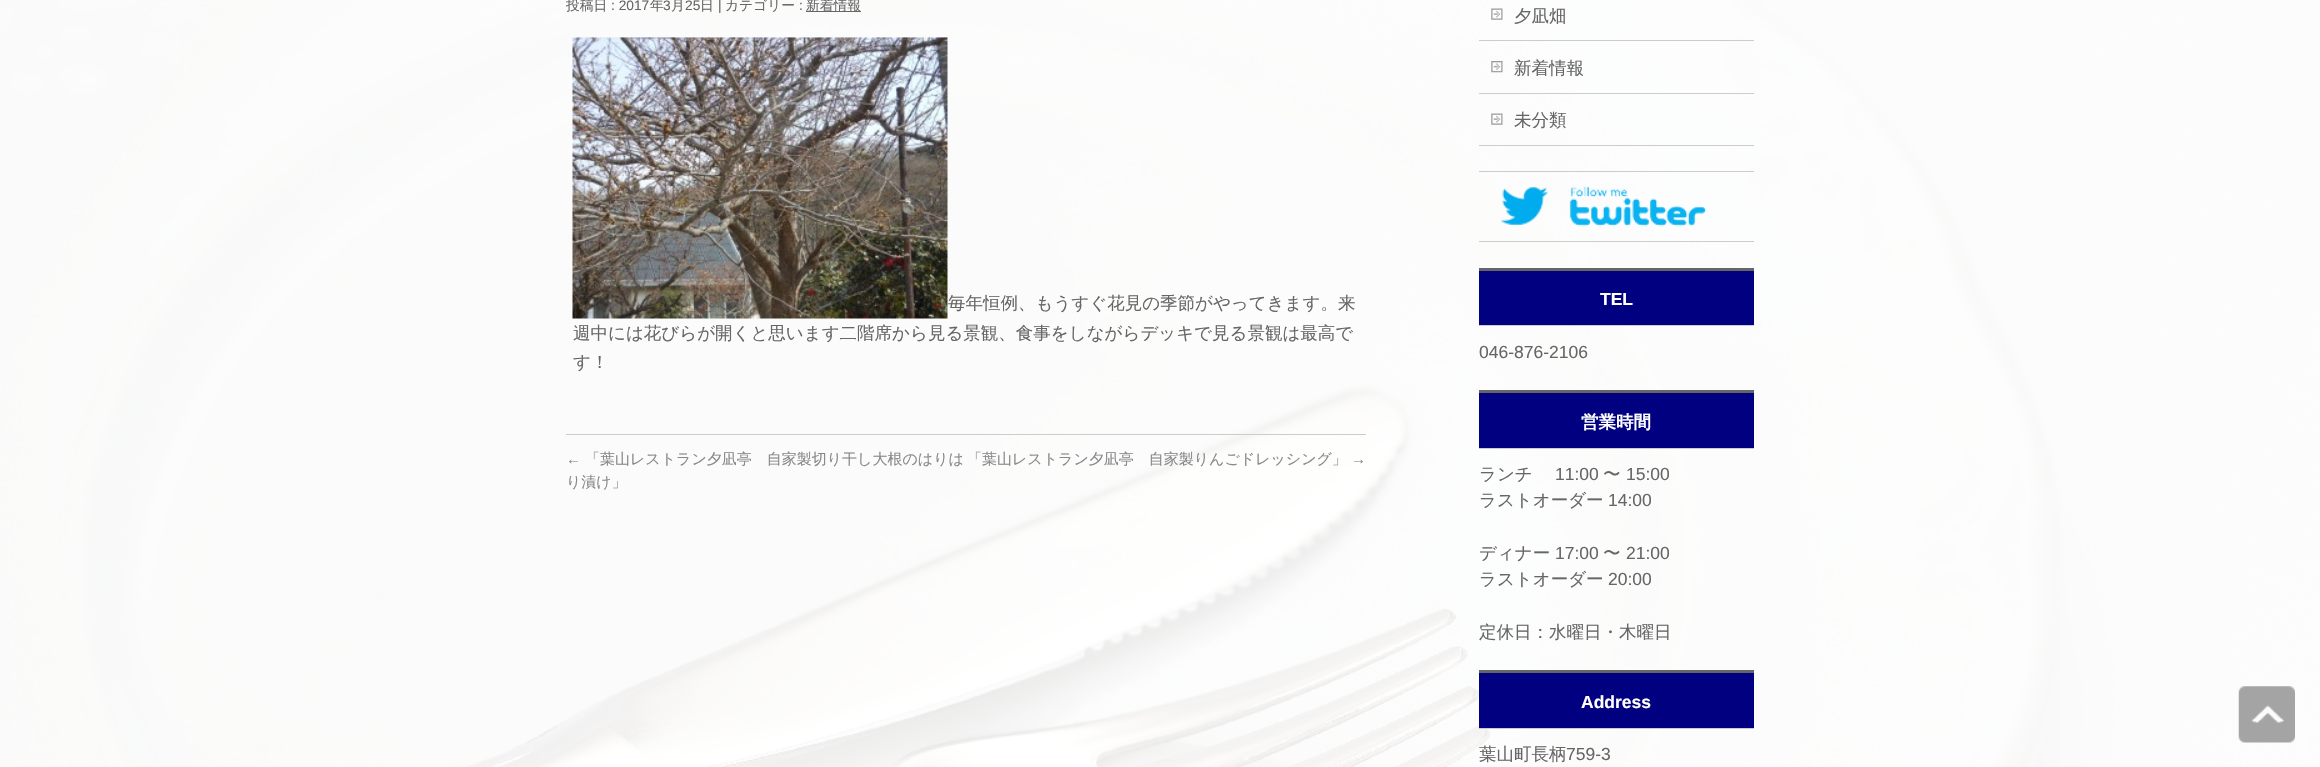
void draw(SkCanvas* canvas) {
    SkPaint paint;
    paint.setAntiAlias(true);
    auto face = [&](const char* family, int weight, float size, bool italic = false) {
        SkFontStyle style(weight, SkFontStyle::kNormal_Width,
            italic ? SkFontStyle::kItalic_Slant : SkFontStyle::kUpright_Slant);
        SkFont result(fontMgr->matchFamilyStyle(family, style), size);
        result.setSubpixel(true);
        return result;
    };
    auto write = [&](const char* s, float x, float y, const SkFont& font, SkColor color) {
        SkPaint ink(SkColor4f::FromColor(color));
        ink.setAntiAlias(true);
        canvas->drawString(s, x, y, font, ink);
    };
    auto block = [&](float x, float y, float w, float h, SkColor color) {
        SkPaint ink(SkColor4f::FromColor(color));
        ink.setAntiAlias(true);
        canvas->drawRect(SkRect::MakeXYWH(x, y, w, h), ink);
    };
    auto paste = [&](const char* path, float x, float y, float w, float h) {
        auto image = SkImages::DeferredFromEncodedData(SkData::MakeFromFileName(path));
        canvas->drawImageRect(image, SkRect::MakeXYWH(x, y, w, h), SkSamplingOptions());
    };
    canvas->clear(SK_ColorWHITE);
    paste("pic1.png", 0, 0, 2320, 767);
    auto kFont1 = face("WenQuanYi Zen Hei", 500, 13.75f);
    write("投稿日", 566, 10, kFont1, SkColorSetRGB(102, 102, 102));
    auto kFont2 = face("Liberation Sans", 400, 13.75f);
    write(": 2017", 611, 10, kFont2, SkColorSetRGB(102, 102, 102));
    write("年", 650, 10, kFont1, SkColorSetRGB(102, 102, 102));
    write("3", 663, 10, kFont2, SkColorSetRGB(102, 102, 102));
    write("月", 671, 10, kFont1, SkColorSetRGB(102, 102, 102));
    write("25", 685, 10, kFont2, SkColorSetRGB(102, 102, 102));
    write("日", 700, 10, kFont1, SkColorSetRGB(102, 102, 102));
    write("|", 718, 10, kFont2, SkColorSetRGB(102, 102, 102));
    write("カテゴリー", 725, 10, kFont1, SkColorSetRGB(102, 102, 102));
    write(":", 799, 10, kFont2, SkColorSetRGB(102, 102, 102));
    block(806, 11, 55, 1, SkColorSetRGB(102, 102, 102));
    write("新着情報", 806, 10, kFont1, SkColorSetRGB(102, 102, 102));
    paste("pic2.png", 572, 37, 376, 282);
    auto kFont3 = face("WenQuanYi Zen Hei", 500, 17.5f);
    write("毎年恒例、もうすぐ花見の季節がやってきます。来", 948, 309, kFont3, SkColorSetRGB(102, 102, 102));
    write("週中には花びらが開くと思います二階席から見る景観、食事をしながらデッキで見る景観は最高で", 573, 339, kFont3, SkColorSetRGB(102, 102, 102));
    write("す！", 573, 368, kFont3, SkColorSetRGB(102, 102, 102));
    block(566, 434, 800, 1, SkColorSetRGB(204, 204, 204));
    auto kFont4 = face("Liberation Sans", 400, 15);
    write("←", 566, 464, kFont4, SkColorSetRGB(136, 136, 136));
    auto kFont5 = face("WenQuanYi Zen Hei", 500, 15);
    write("「葉山レストラン夕凪亭　自家製切り干し大根のはりは", 585, 464, kFont5, SkColorSetRGB(136, 136, 136));
    write("り漬け」", 566, 487, kFont5, SkColorSetRGB(136, 136, 136));
    write("「葉山レストラン夕凪亭　自家製りんごドレッシング」", 967, 464, kFont5, SkColorSetRGB(136, 136, 136));
    write("→", 1351, 464, kFont4, SkColorSetRGB(136, 136, 136));
    block(1479, 40, 275, 1, SkColorSetRGB(204, 204, 204));
    paste("pic3.png", 1491, 8, 12, 12);
    write("夕凪畑", 1514, 22, kFont3, SkColorSetRGB(102, 102, 102));
    block(1479, 93, 275, 1, SkColorSetRGB(204, 204, 204));
    paste("pic4.png", 1491, 61, 12, 12);
    write("新着情報", 1514, 74, kFont3, SkColorSetRGB(102, 102, 102));
    block(1479, 145, 275, 1, SkColorSetRGB(204, 204, 204));
    paste("pic5.png", 1491, 113, 12, 12);
    write("未分類", 1514, 126, kFont3, SkColorSetRGB(102, 102, 102));
    block(1479, 171, 275, 1, SkColorSetRGB(204, 204, 204));
    block(1479, 241, 275, 1, SkColorSetRGB(204, 204, 204));
    paste("pic6.png", 1501, 187, 205, 40);
    block(1479, 271, 275, 54, SkColorSetRGB(0, 0, 128));
    block(1479, 268, 275, 3, SkColorSetRGB(102, 102, 102));
    block(1479, 325, 275, 1, SkColorSetRGB(204, 204, 204));
    auto kFont6 = face("Liberation Sans", 700, 17.5f);
    write("TEL", 1600, 305, kFont6, SK_ColorWHITE);
    auto kFont7 = face("Liberation Sans", 400, 17.5f);
    write("046-876-2106", 1479, 358, kFont7, SkColorSetRGB(102, 102, 102));
    block(1479, 393, 275, 55, SkColorSetRGB(0, 0, 128));
    block(1479, 390, 275, 3, SkColorSetRGB(102, 102, 102));
    block(1479, 448, 275, 1, SkColorSetRGB(204, 204, 204));
    auto kFont8 = face("WenQuanYi Zen Hei", 700, 17.5f);
    write("営業時間", 1581, 428, kFont8, SK_ColorWHITE);
    write("ランチ", 1479, 480, kFont3, SkColorSetRGB(102, 102, 102));
    write("11:00", 1555, 480, kFont7, SkColorSetRGB(102, 102, 102));
    write("〜", 1603, 480, kFont3, SkColorSetRGB(102, 102, 102));
    write("15:00", 1626, 480, kFont7, SkColorSetRGB(102, 102, 102));
    write("ラストオーダー", 1479, 506, kFont3, SkColorSetRGB(102, 102, 102));
    write("14:00", 1608, 506, kFont7, SkColorSetRGB(102, 102, 102));
    write("ディナー", 1479, 559, kFont3, SkColorSetRGB(102, 102, 102));
    write("17:00", 1555, 559, kFont7, SkColorSetRGB(102, 102, 102));
    write("〜", 1603, 559, kFont3, SkColorSetRGB(102, 102, 102));
    write("21:00", 1626, 559, kFont7, SkColorSetRGB(102, 102, 102));
    write("ラストオーダー", 1479, 585, kFont3, SkColorSetRGB(102, 102, 102));
    write("20:00", 1608, 585, kFont7, SkColorSetRGB(102, 102, 102));
    write("定休日：水曜日・木曜日", 1479, 638, kFont3, SkColorSetRGB(102, 102, 102));
    block(1479, 673, 275, 55, SkColorSetRGB(0, 0, 128));
    block(1479, 670, 275, 3, SkColorSetRGB(102, 102, 102));
    block(1479, 728, 275, 1, SkColorSetRGB(204, 204, 204));
    write("Address", 1581, 708, kFont6, SK_ColorWHITE);
    write("葉山町長柄", 1479, 760, kFont3, SkColorSetRGB(102, 102, 102));
    write("759-3", 1566, 760, kFont7, SkColorSetRGB(102, 102, 102));
    paste("pic7.png", 2238, 686, 57, 57);
}
